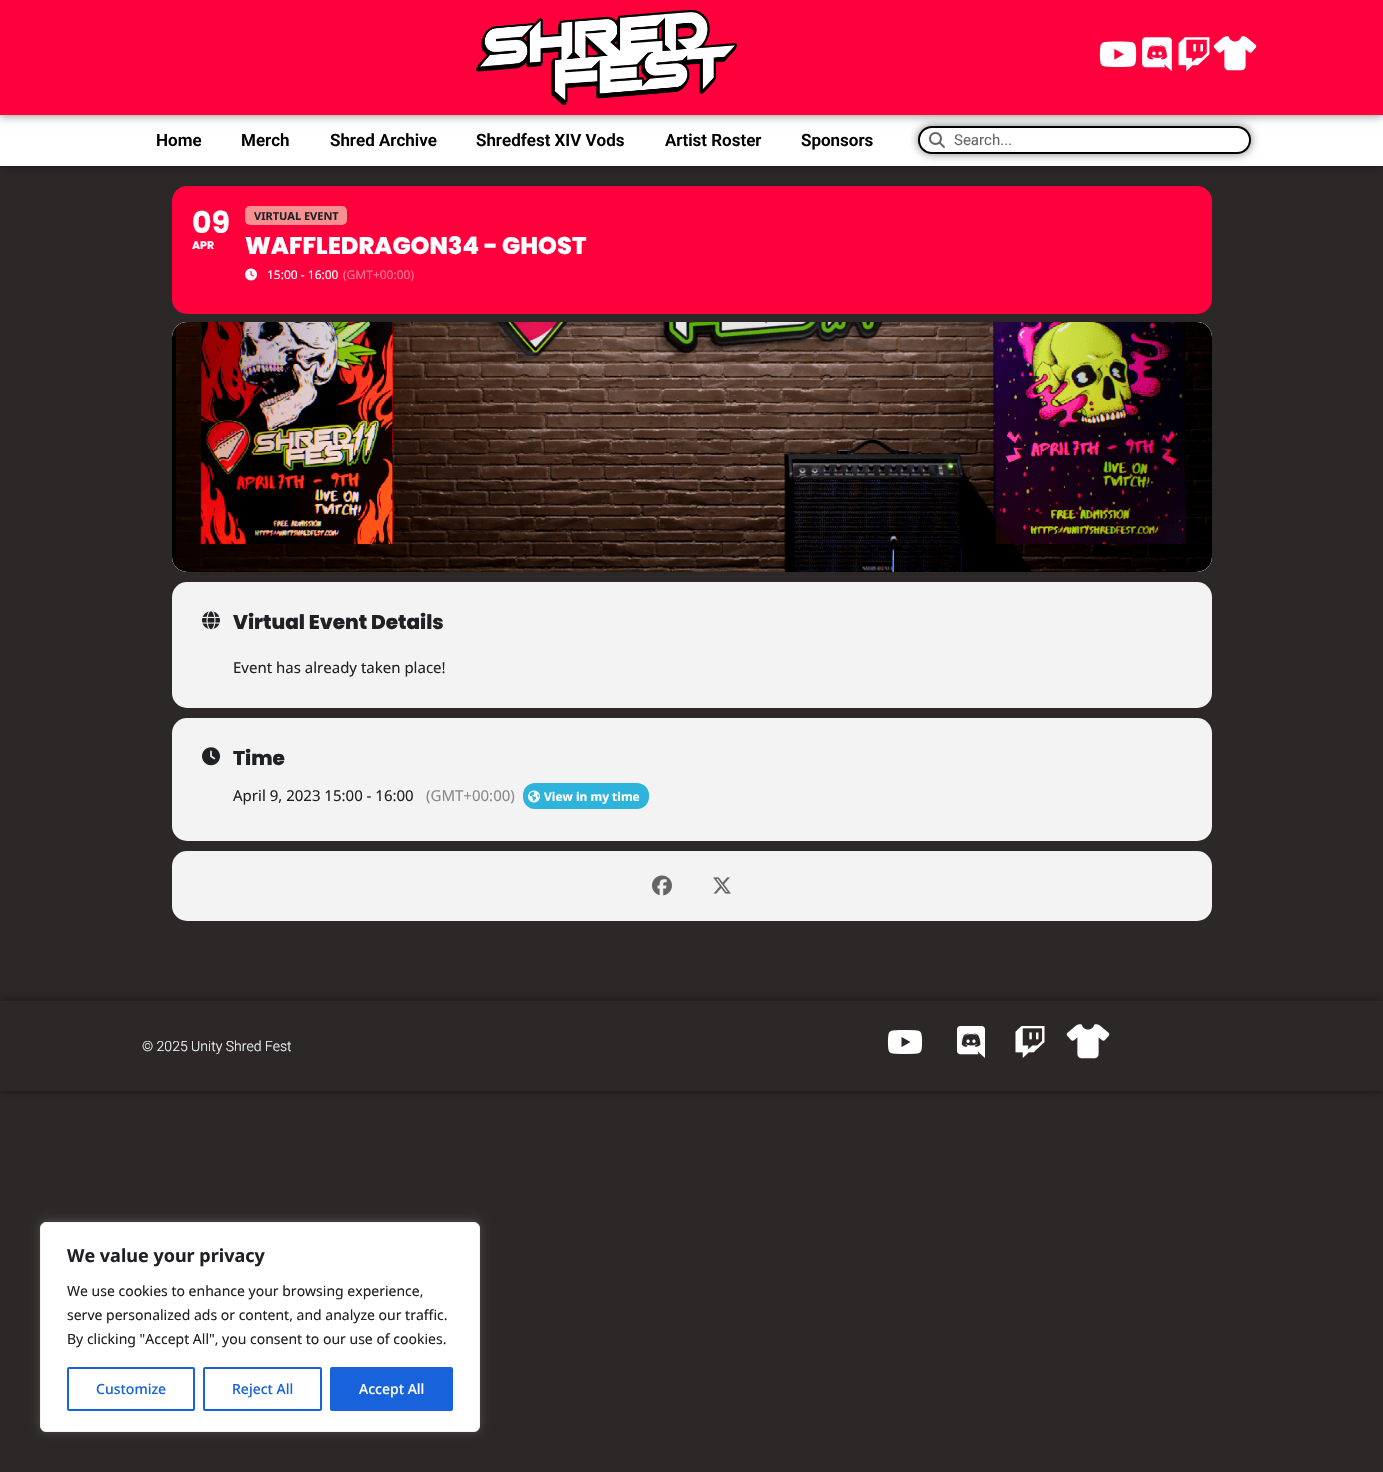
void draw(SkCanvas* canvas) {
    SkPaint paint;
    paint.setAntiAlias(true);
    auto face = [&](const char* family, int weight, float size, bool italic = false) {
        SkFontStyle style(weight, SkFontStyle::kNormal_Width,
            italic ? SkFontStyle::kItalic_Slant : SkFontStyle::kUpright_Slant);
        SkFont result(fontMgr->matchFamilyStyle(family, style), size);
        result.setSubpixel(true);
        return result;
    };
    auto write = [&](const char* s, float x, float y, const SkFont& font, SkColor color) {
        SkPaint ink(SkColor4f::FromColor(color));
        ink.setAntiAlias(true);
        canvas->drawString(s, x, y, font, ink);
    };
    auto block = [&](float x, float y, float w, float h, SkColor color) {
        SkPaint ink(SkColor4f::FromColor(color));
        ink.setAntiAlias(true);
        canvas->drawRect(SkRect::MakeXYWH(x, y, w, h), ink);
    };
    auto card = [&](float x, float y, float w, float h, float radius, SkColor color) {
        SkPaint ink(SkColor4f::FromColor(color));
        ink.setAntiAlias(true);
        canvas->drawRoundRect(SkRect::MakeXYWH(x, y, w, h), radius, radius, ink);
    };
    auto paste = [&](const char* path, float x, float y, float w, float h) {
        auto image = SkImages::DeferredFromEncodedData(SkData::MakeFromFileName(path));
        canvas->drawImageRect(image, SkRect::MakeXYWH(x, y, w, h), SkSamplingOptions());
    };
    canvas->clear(SkColorSetRGB(45, 40, 40));
    paint.setColor(SkColorSetARGB(128, 0, 0, 0));
    paint.setMaskFilter(SkMaskFilter::MakeBlur(kNormal_SkBlurStyle, 5));
    canvas->drawRect(SkRect::MakeXYWH(0, 115, 1383, 51), paint);
    paint.setMaskFilter(nullptr);
    block(0, 115, 1383, 51, SK_ColorWHITE);
    paint.setMaskFilter(SkMaskFilter::MakeBlur(kNormal_SkBlurStyle, 5));
    canvas->drawRoundRect(SkRect::MakeXYWH(918, 126, 333, 28), 14, 14, paint);
    paint.setMaskFilter(nullptr);
    paint.setColor(SK_ColorWHITE);
    canvas->drawRoundRect(SkRect::MakeXYWH(919, 127, 331, 26), 13, 13, paint);
    paint.setStyle(SkPaint::kStroke_Style);
    paint.setStrokeWidth(2);
    paint.setColor(SK_ColorBLACK);
    canvas->drawRoundRect(SkRect::MakeXYWH(919, 127, 331, 26), 13, 13, paint);
    paint.setStyle(SkPaint::kFill_Style);
    paint.setColor(SkColorSetARGB(128, 0, 0, 0));
    paint.setMaskFilter(SkMaskFilter::MakeBlur(kNormal_SkBlurStyle, 5));
    canvas->drawRect(SkRect::MakeXYWH(0, 0, 1383, 115), paint);
    paint.setMaskFilter(nullptr);
    block(0, 0, 1383, 115, SkColorSetRGB(255, 0, 60));
    paste("pic1.png", 476, 10, 261, 95);
    paste("pic2.png", 1099, 41, 38, 26);
    paste("pic3.png", 1142, 37, 30, 35);
    paste("pic4.png", 1178, 37, 32, 35);
    paste("pic5.png", 1213, 36, 44, 35);
    auto kFont1 = face("Roboto", 600, 17);
    write("Home", 156, 146, kFont1, SK_ColorBLACK);
    write("Merch", 241, 146, kFont1, SK_ColorBLACK);
    write("Shred Archive", 330, 146, kFont1, SK_ColorBLACK);
    write("Shredfest XIV Vods", 476, 146, kFont1, SK_ColorBLACK);
    write("Artist Roster", 665, 146, kFont1, SK_ColorBLACK);
    write("Sponsors", 801, 146, kFont1, SK_ColorBLACK);
    paste("pic6.png", 929, 132, 16, 16);
    auto kFont2 = face("Roboto", 400, 15);
    write("Search...", 954, 145, kFont2, SkColorSetRGB(102, 102, 102));
    card(172, 186, 1040, 128, 15, SkColorSetRGB(255, 0, 60));
    auto kFont3 = face("Poppins", 700, 30);
    write("09", 192, 233, kFont3, SK_ColorWHITE);
    auto kFont4 = face("Poppins", 700, 11);
    write("APR", 192, 249, kFont4, SK_ColorWHITE);
    card(245, 206, 102, 19, 5, SkColorSetRGB(247, 145, 145));
    auto kFont5 = face("Noto Sans", 700, 11);
    write("VIRTUAL EVENT", 254, 220, kFont5, SkColorSetRGB(32, 33, 36));
    auto kFont6 = face("Poppins", 800, 24);
    write("WAFFLEDRAGON34 - GHOST", 245, 254, kFont6, SK_ColorWHITE);
    paste("pic7.png", 245, 268, 12, 13);
    auto kFont7 = face("Noto Sans", 400, 12);
    write("15:00 - 16:00", 267, 279, kFont7, SK_ColorWHITE);
    write("(GMT+00:00)", 343, 279, kFont7, SkColorSetRGB(255, 128, 158));
    card(172, 322, 1040, 250, 15, SkColorSetRGB(243, 243, 243));
    paste("pic8.png", 172, 322, 1040, 250);
    card(172, 582, 1040, 126, 15, SkColorSetRGB(243, 243, 243));
    paste("pic9.png", 202, 611, 18, 19);
    auto kFont8 = face("Poppins", 800, 20);
    write("Virtual Event Details", 233, 629, kFont8, SkColorSetRGB(32, 33, 36));
    auto kFont9 = face("Noto Sans", 400, 15);
    write("Event has already taken place!", 233, 673, kFont9, SkColorSetRGB(32, 33, 36));
    card(172, 718, 1040, 123, 15, SkColorSetRGB(243, 243, 243));
    paste("pic10.png", 202, 747, 18, 19);
    write("Time", 233, 765, kFont8, SkColorSetRGB(32, 33, 36));
    write("April 9, 2023 15:00 - 16:00", 233, 801, kFont9, SkColorSetRGB(32, 33, 36));
    write("(GMT+00:00)", 426, 801, kFont9, SkColorSetRGB(138, 138, 140));
    card(523, 783, 126, 26, 12, SkColorSetRGB(46, 180, 220));
    paste("pic11.png", 528, 790, 12, 13);
    auto kFont10 = face("Noto Sans", 700, 12);
    write("View in my time", 544, 801, kFont10, SK_ColorWHITE);
    card(172, 851, 1040, 70, 15, SkColorSetRGB(243, 243, 243));
    paste("pic12.png", 652, 875, 20, 21);
    paste("pic13.png", 713, 877, 18, 17);
    canvas->save();
    canvas->clipPath(SkPathBuilder(SkPathFillType::kEvenOdd).moveTo(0, 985).lineTo(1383, 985).lineTo(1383, 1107).lineTo(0, 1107).close().moveTo(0, 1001).lineTo(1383, 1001).lineTo(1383, 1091).lineTo(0, 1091).close().detach(), true);
    paint.setMaskFilter(SkMaskFilter::MakeBlur(kNormal_SkBlurStyle, 5));
    canvas->drawRect(SkRect::MakeXYWH(0, 1001, 1383, 90), paint);
    paint.setMaskFilter(nullptr);
    canvas->restore();
    auto kFont11 = face("Roboto", 300, 14);
    write("© 2025 Unity Shred Fest", 142, 1051, kFont11, SkColorSetRGB(247, 251, 255));
    paste("pic14.png", 887, 1030, 36, 24);
    paste("pic15.png", 957, 1026, 28, 32);
    paste("pic16.png", 1015, 1026, 30, 32);
    paste("pic17.png", 1066, 1024, 44, 35);
    paint.setColor(SkColorSetARGB(77, 172, 171, 171));
    paint.setMaskFilter(SkMaskFilter::MakeBlur(kNormal_SkBlurStyle, 5));
    canvas->drawRoundRect(SkRect::MakeXYWH(40, 1221, 440, 210), 6, 6, paint);
    paint.setMaskFilter(nullptr);
    paint.setColor(SK_ColorWHITE);
    canvas->drawRoundRect(SkRect::MakeXYWH(40.5f, 1222.5f, 439, 209), 5.5f, 5.5f, paint);
    paint.setStyle(SkPaint::kStroke_Style);
    paint.setStrokeWidth(1);
    paint.setColor(SkColorSetRGB(244, 244, 244));
    canvas->drawRoundRect(SkRect::MakeXYWH(40.5f, 1222.5f, 439, 209), 5.5f, 5.5f, paint);
    auto kFont12 = face("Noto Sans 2", 700, 18);
    write("We value your privacy", 67, 1262, kFont12, SkColorSetRGB(32, 33, 36));
    auto kFont13 = face("Noto Sans 2", 400, 14);
    write("We use cookies to enhance your browsing experience,", 67, 1296, kFont13, SkColorSetRGB(32, 33, 36));
    write("serve personalized ads or content, and analyze our traffic.", 67, 1320, kFont13, SkColorSetRGB(32, 33, 36));
    write("By clicking \"Accept All\", you consent to our use of cookies.", 67, 1344, kFont13, SkColorSetRGB(32, 33, 36));
    paint.setStrokeWidth(2);
    paint.setColor(SkColorSetRGB(24, 99, 220));
    canvas->drawRoundRect(SkRect::MakeXYWH(68, 1368, 126, 42), 1, 1, paint);
    auto kFont14 = face("Noto Sans", 500, 14);
    write("Customize", 96, 1394, kFont14, SkColorSetRGB(24, 99, 220));
    canvas->drawRoundRect(SkRect::MakeXYWH(204, 1368, 117, 42), 1, 1, paint);
    write("Reject All", 232, 1394, kFont14, SkColorSetRGB(24, 99, 220));
    paint.setStyle(SkPaint::kFill_Style);
    canvas->drawRoundRect(SkRect::MakeXYWH(331, 1368, 121, 42), 1, 1, paint);
    paint.setStyle(SkPaint::kStroke_Style);
    canvas->drawRoundRect(SkRect::MakeXYWH(331, 1368, 121, 42), 1, 1, paint);
    write("Accept All", 359, 1394, kFont14, SK_ColorWHITE);
}
